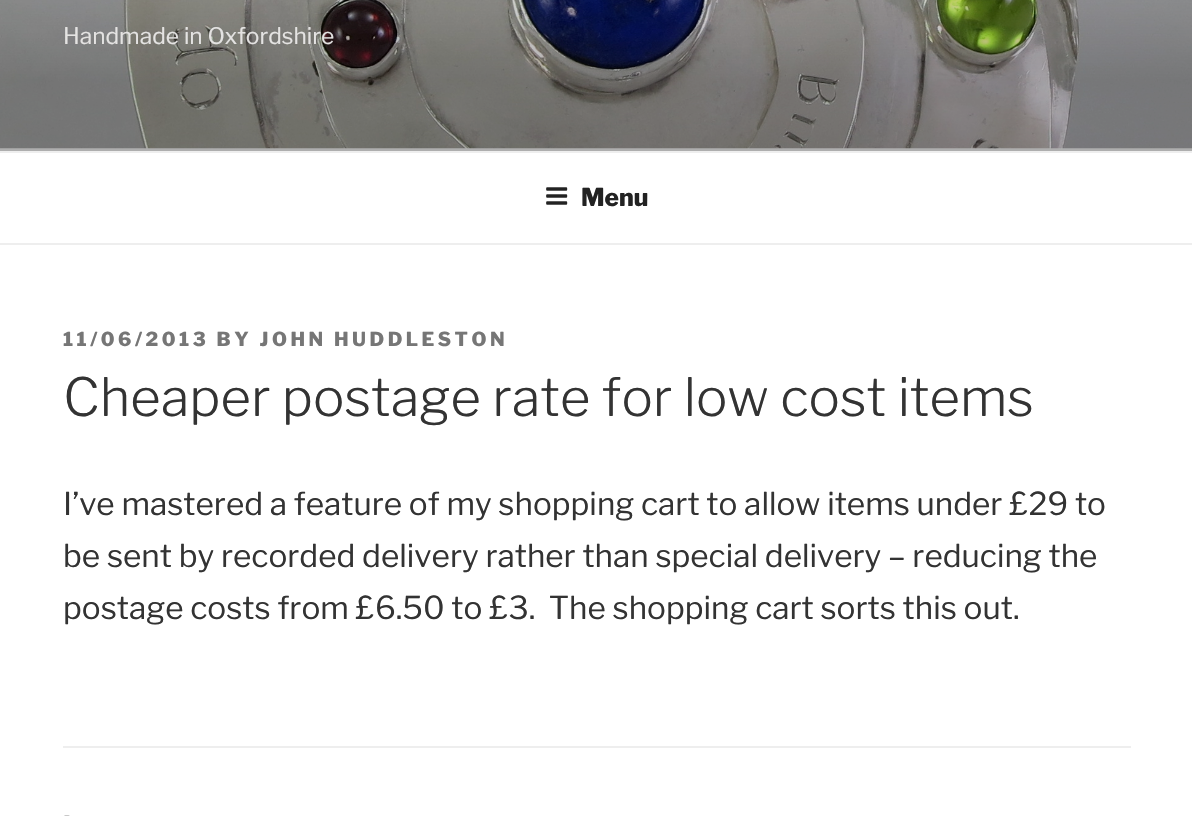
void draw(SkCanvas* canvas) {
    SkPaint paint;
    paint.setAntiAlias(true);
    auto face = [&](const char* family, int weight, float size, bool italic = false) {
        SkFontStyle style(weight, SkFontStyle::kNormal_Width,
            italic ? SkFontStyle::kItalic_Slant : SkFontStyle::kUpright_Slant);
        SkFont result(fontMgr->matchFamilyStyle(family, style), size);
        result.setSubpixel(true);
        return result;
    };
    auto write = [&](const char* s, float x, float y, const SkFont& font, SkColor color) {
        SkPaint ink(SkColor4f::FromColor(color));
        ink.setAntiAlias(true);
        canvas->drawString(s, x, y, font, ink);
    };
    auto writeSpaced = [&](const char* s, float x, float y, const SkFont& font, const SkPaint& ink, float letter, float word) {
        std::vector<SkGlyphID> glyphs(font.countText(s, strlen(s), SkTextEncoding::kUTF8));
        std::vector<float> xs(glyphs.size());
        font.textToGlyphs(s, strlen(s), SkTextEncoding::kUTF8, glyphs);
        font.getXPos(glyphs, xs, x);
        float extra = 0;
        for (size_t i = 0; i < glyphs.size(); i++) {
            xs[i] += extra;
            extra += letter + word * (glyphs[i] == font.unicharToGlyph(' '));
        }
        canvas->drawTextBlob(SkTextBlob::MakeFromPosHGlyphs(glyphs, xs, y, font), 0, 0, ink);
    };
    auto block = [&](float x, float y, float w, float h, SkColor color) {
        SkPaint ink(SkColor4f::FromColor(color));
        ink.setAntiAlias(true);
        canvas->drawRect(SkRect::MakeXYWH(x, y, w, h), ink);
    };
    auto paste = [&](const char* path, float x, float y, float w, float h) {
        auto image = SkImages::DeferredFromEncodedData(SkData::MakeFromFileName(path));
        canvas->drawImageRect(image, SkRect::MakeXYWH(x, y, w, h), SkSamplingOptions());
    };
    canvas->clear(SK_ColorWHITE);
    block(0, 148, 1192, 3, SkColorSetRGB(250, 250, 250));
    paste("pic1.png", 0, 0, 1192, 149);
    {
        const SkColor colors[] = {SkColorSetARGB(0, 0, 0, 0), SkColorSetARGB(77, 0, 0, 0), SkColorSetARGB(77, 0, 0, 0)};
        const float stops[] = {0, 0.75f, 1};
        const SkPoint ends[] = {{597, -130}, {597, 151}};
        paint.setShader(SkGradientShader::MakeLinear(ends, colors, stops, 3, SkTileMode::kClamp));
        paint.setAlpha(255);
    }
    canvas->drawRect(SkRect::MakeXYWH(0, 0, 1192, 151), paint);
    auto kFont1 = face("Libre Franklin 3", 100, 22.75f);
    write("Handmade in Oxfordshire", 63, 44, kFont1, SkColorSetRGB(228, 227, 226));
    block(0, 151, 1192, 2, SkColorSetRGB(238, 238, 238));
    block(0, 243, 1192, 2, SkColorSetRGB(238, 238, 238));
    paste("pic2.png", 546, 187, 22, 18);
    auto kFont2 = face("Libre Franklin", 100, 24.5f);
    write("Menu", 581, 206, kFont2, SkColorSetRGB(34, 34, 34));
    auto kFont3 = face("Libre Franklin", 100, 19.25f);
    paint.setShader(nullptr);
    paint.setColor(SkColorSetRGB(118, 118, 118));
    writeSpaced("11/06/2013 BY JOHN HUDDLESTON", 63, 346, kFont3, paint, 3.5f, 0);
    auto kFont4 = face("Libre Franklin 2", 100, 52.5f);
    write("Cheaper postage rate for low cost items", 63, 416, kFont4, SkColorSetRGB(51, 51, 51));
    auto kFont5 = face("Libre Franklin 3", 100, 31.5f);
    write("I’ve mastered a feature of my shopping cart to allow items under £29 to", 63, 515, kFont5, SkColorSetRGB(51, 51, 51));
    write("be sent by recorded delivery rather than special delivery – reducing the", 63, 567, kFont5, SkColorSetRGB(51, 51, 51));
    write("postage costs from £6.50 to £3.  The shopping cart sorts this out.", 63, 619, kFont5, SkColorSetRGB(51, 51, 51));
    block(63, 746, 1068, 2, SkColorSetRGB(238, 238, 238));
    paste("pic3.png", 64, 815, 6, 1);
}
